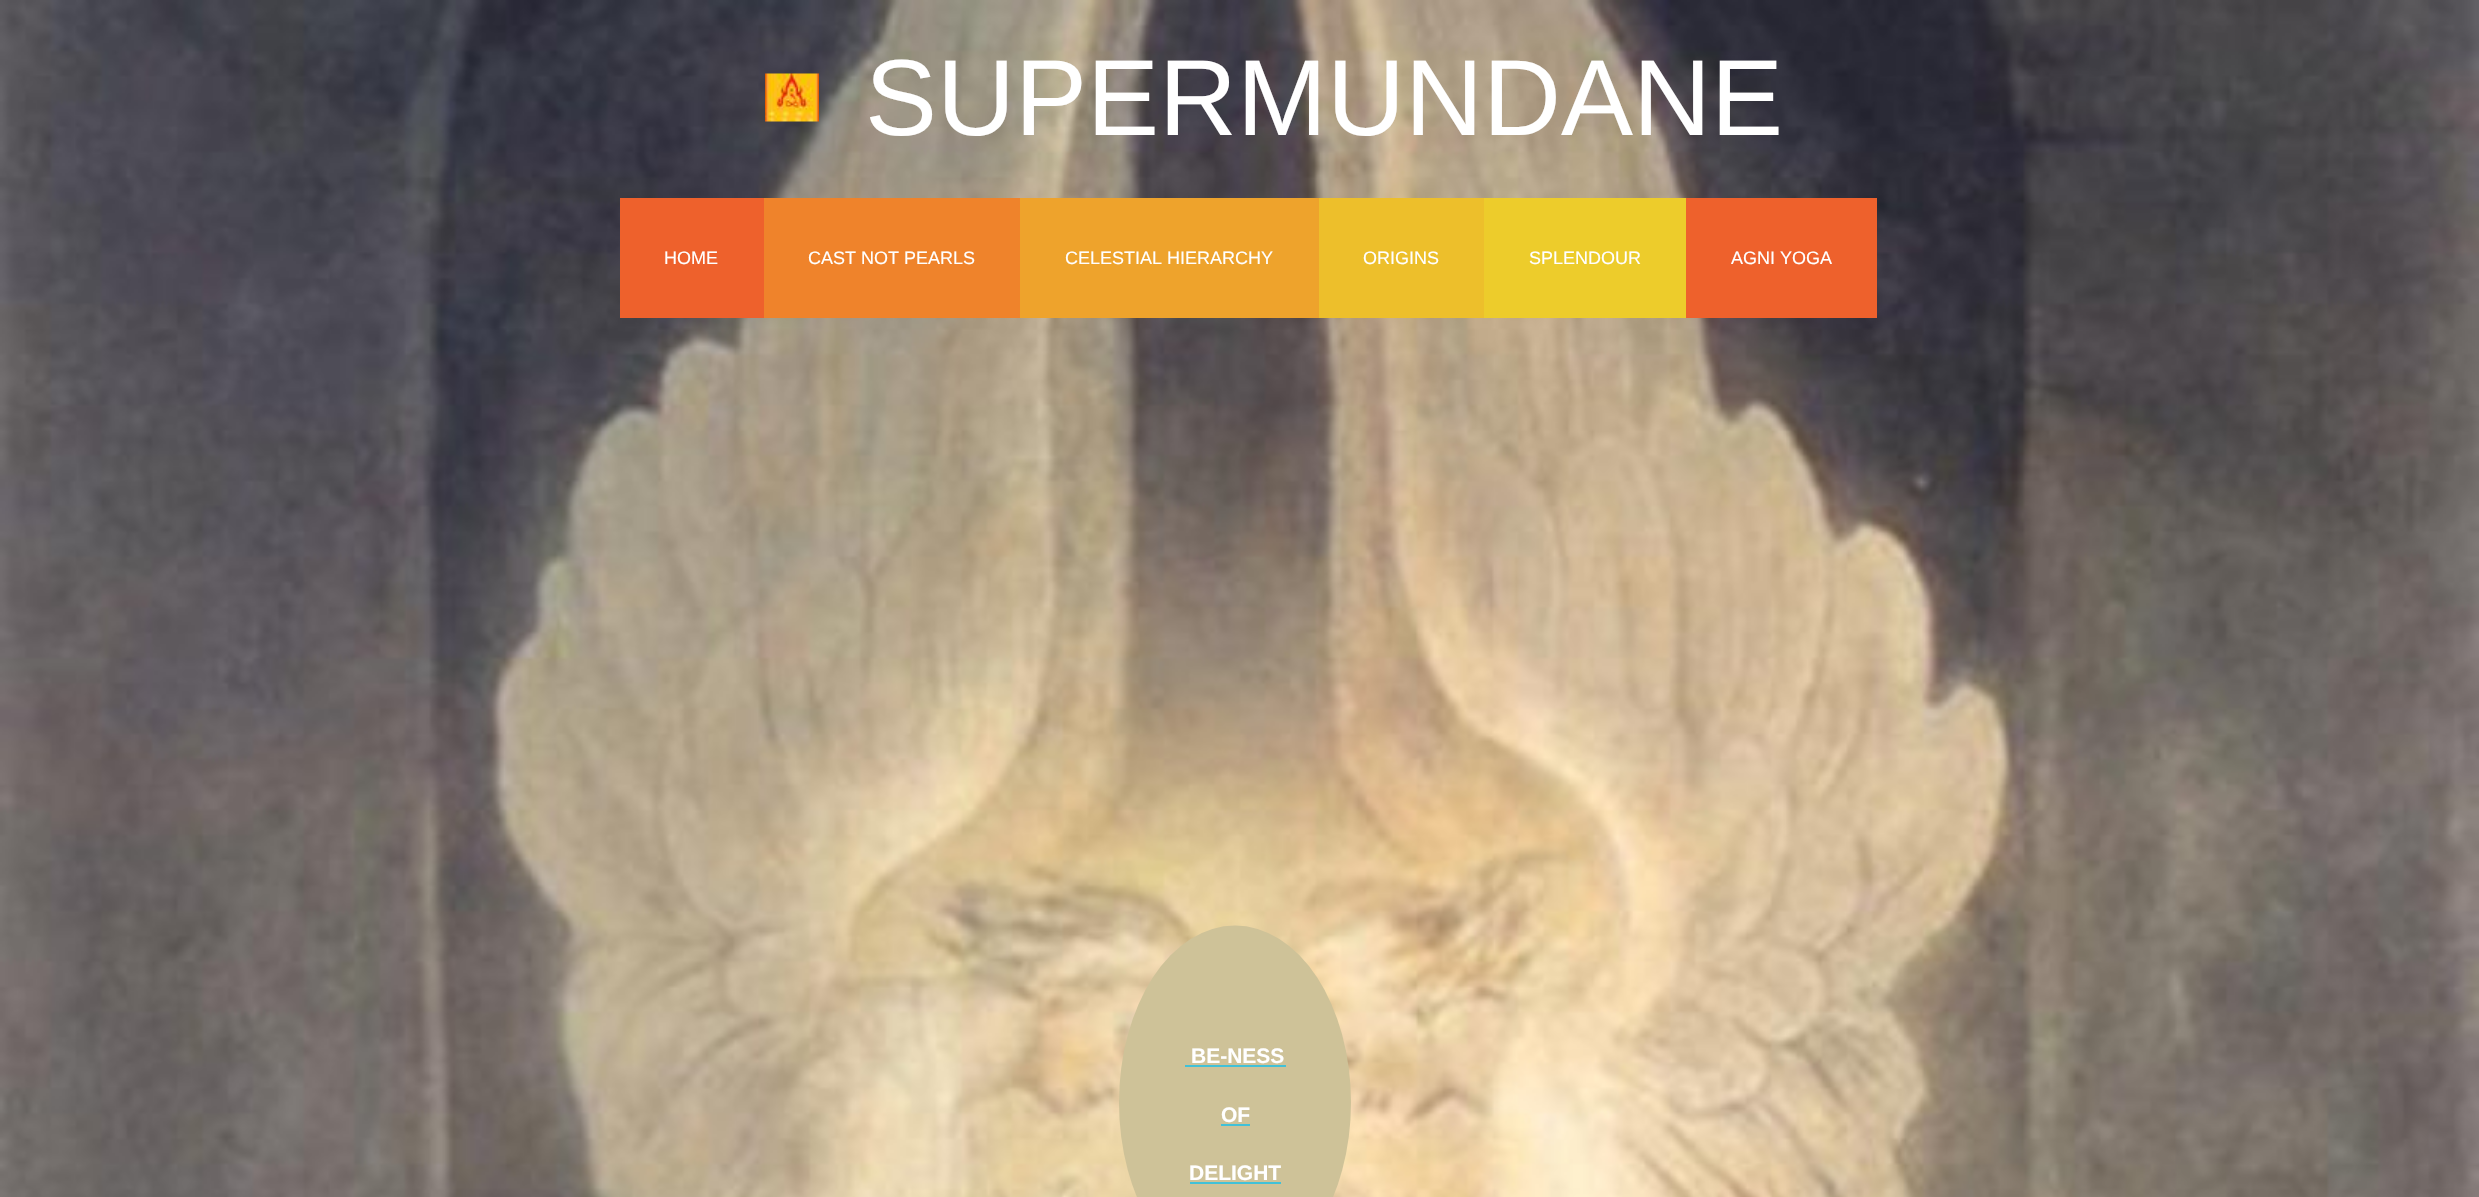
void draw(SkCanvas* canvas) {
    SkPaint paint;
    paint.setAntiAlias(true);
    auto face = [&](const char* family, int weight, float size, bool italic = false) {
        SkFontStyle style(weight, SkFontStyle::kNormal_Width,
            italic ? SkFontStyle::kItalic_Slant : SkFontStyle::kUpright_Slant);
        SkFont result(fontMgr->matchFamilyStyle(family, style), size);
        result.setSubpixel(true);
        return result;
    };
    auto write = [&](const char* s, float x, float y, const SkFont& font, SkColor color) {
        SkPaint ink(SkColor4f::FromColor(color));
        ink.setAntiAlias(true);
        canvas->drawString(s, x, y, font, ink);
    };
    auto block = [&](float x, float y, float w, float h, SkColor color) {
        SkPaint ink(SkColor4f::FromColor(color));
        ink.setAntiAlias(true);
        canvas->drawRect(SkRect::MakeXYWH(x, y, w, h), ink);
    };
    auto paste = [&](const char* path, float x, float y, float w, float h) {
        auto image = SkImages::DeferredFromEncodedData(SkData::MakeFromFileName(path));
        canvas->drawImageRect(image, SkRect::MakeXYWH(x, y, w, h), SkSamplingOptions());
    };
    canvas->clear(SK_ColorWHITE);
    paste("pic1.png", 0, 0, 2479, 1197);
    paste("pic2.png", 765, 73, 54, 49);
    auto kFont1 = face("Liberation Sans", 400, 108);
    write("SUPERMUNDANE", 865, 135, kFont1, SK_ColorWHITE);
    block(620, 198, 144, 120, SkColorSetRGB(238, 97, 44));
    auto kFont2 = face("Liberation Sans", 400, 18);
    write("HOME", 664, 264, kFont2, SK_ColorWHITE);
    block(764, 198, 256, 120, SkColorSetRGB(239, 131, 43));
    write("CAST NOT PEARLS", 808, 264, kFont2, SK_ColorWHITE);
    block(1020, 198, 299, 120, SkColorSetRGB(238, 163, 44));
    write("CELESTIAL HIERARCHY", 1065, 264, kFont2, SK_ColorWHITE);
    block(1319, 198, 165, 120, SkColorSetRGB(237, 191, 43));
    write("ORIGINS", 1363, 264, kFont2, SK_ColorWHITE);
    block(1484, 198, 202, 120, SkColorSetRGB(237, 204, 43));
    write("SPLENDOUR", 1529, 264, kFont2, SK_ColorWHITE);
    block(1686, 198, 191, 120, SkColorSetRGB(238, 97, 44));
    write("AGNI YOGA", 1731, 264, kFont2, SK_ColorWHITE);
    paint.setColor(SkColorSetRGB(206, 194, 152));
    canvas->drawOval(SkRect::MakeXYWH(1119, 925.5f, 232, 354), paint);
    auto kFont3 = face("Liberation Sans", 700, 21);
    write("BE-NESS", 1191, 1063, kFont3, SK_ColorWHITE);
    block(1185, 1065, 101, 2, SkColorSetRGB(65, 193, 216));
    write("OF", 1221, 1122, kFont3, SK_ColorWHITE);
    block(1221, 1124, 29, 2, SkColorSetRGB(65, 193, 216));
    write("DELIGHT", 1189, 1180, kFont3, SK_ColorWHITE);
    block(1190, 1182, 91, 2, SkColorSetRGB(65, 193, 216));
}
